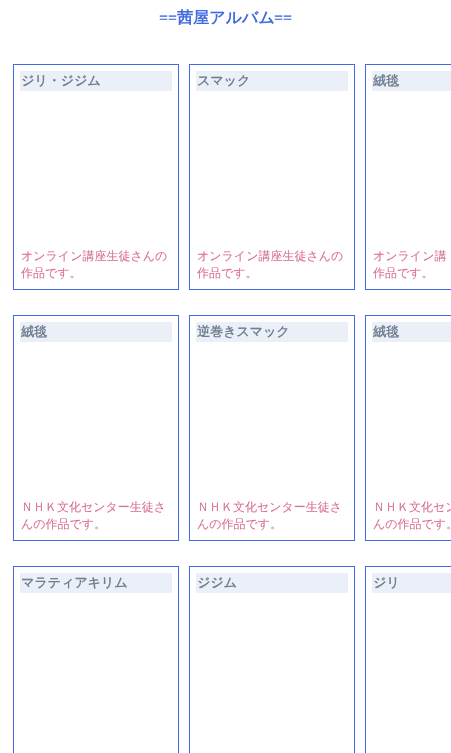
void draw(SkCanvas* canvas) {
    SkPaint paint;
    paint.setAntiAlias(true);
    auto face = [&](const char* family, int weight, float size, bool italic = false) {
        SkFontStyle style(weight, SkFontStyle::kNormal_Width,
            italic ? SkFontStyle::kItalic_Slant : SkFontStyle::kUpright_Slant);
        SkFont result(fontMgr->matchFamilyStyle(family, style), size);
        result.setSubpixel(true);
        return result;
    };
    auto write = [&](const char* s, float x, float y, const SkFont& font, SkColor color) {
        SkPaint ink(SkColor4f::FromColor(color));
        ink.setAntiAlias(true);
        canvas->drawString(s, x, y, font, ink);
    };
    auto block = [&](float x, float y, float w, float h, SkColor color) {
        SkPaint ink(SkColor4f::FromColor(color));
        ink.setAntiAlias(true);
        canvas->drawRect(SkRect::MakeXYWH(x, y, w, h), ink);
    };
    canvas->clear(SK_ColorWHITE);
    auto kFont1 = face("Liberation Serif", 700, 16);
    write("==", 159, 23, kFont1, SkColorSetRGB(65, 105, 225));
    auto kFont2 = face("WenQuanYi Zen Hei", 700, 16);
    write("茜屋アルバム", 177, 23, kFont2, SkColorSetRGB(65, 105, 225));
    write("==", 274, 23, kFont1, SkColorSetRGB(65, 105, 225));
    block(13, 64, 166, 226, SkColorSetRGB(65, 105, 225));
    block(14, 65, 164, 224, SK_ColorWHITE);
    block(20, 71, 152, 20, SkColorSetRGB(235, 240, 248));
    auto kFont3 = face("WenQuanYi Zen Hei", 700, 13);
    write("ジリ・ジジム", 21, 85, kFont3, SkColorSetRGB(112, 128, 144));
    auto kFont4 = face("WenQuanYi Zen Hei", 500, 12);
    write("オンライン講座生徒さんの", 21, 260, kFont4, SkColorSetRGB(219, 112, 147));
    write("作品です。", 21, 277, kFont4, SkColorSetRGB(219, 112, 147));
    block(189, 64, 166, 226, SkColorSetRGB(65, 105, 225));
    block(190, 65, 164, 224, SK_ColorWHITE);
    block(196, 71, 152, 20, SkColorSetRGB(235, 240, 248));
    write("スマック", 197, 85, kFont3, SkColorSetRGB(112, 128, 144));
    write("オンライン講座生徒さんの", 197, 260, kFont4, SkColorSetRGB(219, 112, 147));
    write("作品です。", 197, 277, kFont4, SkColorSetRGB(219, 112, 147));
    block(365, 64, 86, 226, SkColorSetRGB(65, 105, 225));
    block(366, 65, 85, 224, SK_ColorWHITE);
    block(372, 71, 79, 20, SkColorSetRGB(235, 240, 248));
    write("絨毯", 373, 85, kFont3, SkColorSetRGB(112, 128, 144));
    write("オンライン講", 373, 260, kFont4, SkColorSetRGB(219, 112, 147));
    write("作品です。", 373, 277, kFont4, SkColorSetRGB(219, 112, 147));
    block(13, 315, 166, 226, SkColorSetRGB(65, 105, 225));
    block(14, 316, 164, 224, SK_ColorWHITE);
    block(20, 322, 152, 20, SkColorSetRGB(235, 240, 248));
    write("絨毯", 21, 336, kFont3, SkColorSetRGB(112, 128, 144));
    write("ＮＨＫ文化センター生徒さ", 21, 511, kFont4, SkColorSetRGB(219, 112, 147));
    write("んの作品です。", 21, 528, kFont4, SkColorSetRGB(219, 112, 147));
    block(189, 315, 166, 226, SkColorSetRGB(65, 105, 225));
    block(190, 316, 164, 224, SK_ColorWHITE);
    block(196, 322, 152, 20, SkColorSetRGB(235, 240, 248));
    write("逆巻きスマック", 197, 336, kFont3, SkColorSetRGB(112, 128, 144));
    write("ＮＨＫ文化センター生徒さ", 197, 511, kFont4, SkColorSetRGB(219, 112, 147));
    write("んの作品です。", 197, 528, kFont4, SkColorSetRGB(219, 112, 147));
    block(365, 315, 86, 226, SkColorSetRGB(65, 105, 225));
    block(366, 316, 85, 224, SK_ColorWHITE);
    block(372, 322, 79, 20, SkColorSetRGB(235, 240, 248));
    write("絨毯", 373, 336, kFont3, SkColorSetRGB(112, 128, 144));
    write("ＮＨＫ文化セン", 373, 511, kFont4, SkColorSetRGB(219, 112, 147));
    write("んの作品です。", 373, 528, kFont4, SkColorSetRGB(219, 112, 147));
    block(13, 566, 166, 187, SkColorSetRGB(65, 105, 225));
    block(14, 567, 164, 186, SK_ColorWHITE);
    block(20, 573, 152, 20, SkColorSetRGB(235, 240, 248));
    write("マラティアキリム", 21, 587, kFont3, SkColorSetRGB(112, 128, 144));
    block(189, 566, 166, 187, SkColorSetRGB(65, 105, 225));
    block(190, 567, 164, 186, SK_ColorWHITE);
    block(196, 573, 152, 20, SkColorSetRGB(235, 240, 248));
    write("ジジム", 197, 587, kFont3, SkColorSetRGB(112, 128, 144));
    block(365, 566, 86, 187, SkColorSetRGB(65, 105, 225));
    block(366, 567, 85, 186, SK_ColorWHITE);
    block(372, 573, 79, 20, SkColorSetRGB(235, 240, 248));
    write("ジリ", 373, 587, kFont3, SkColorSetRGB(112, 128, 144));
}
